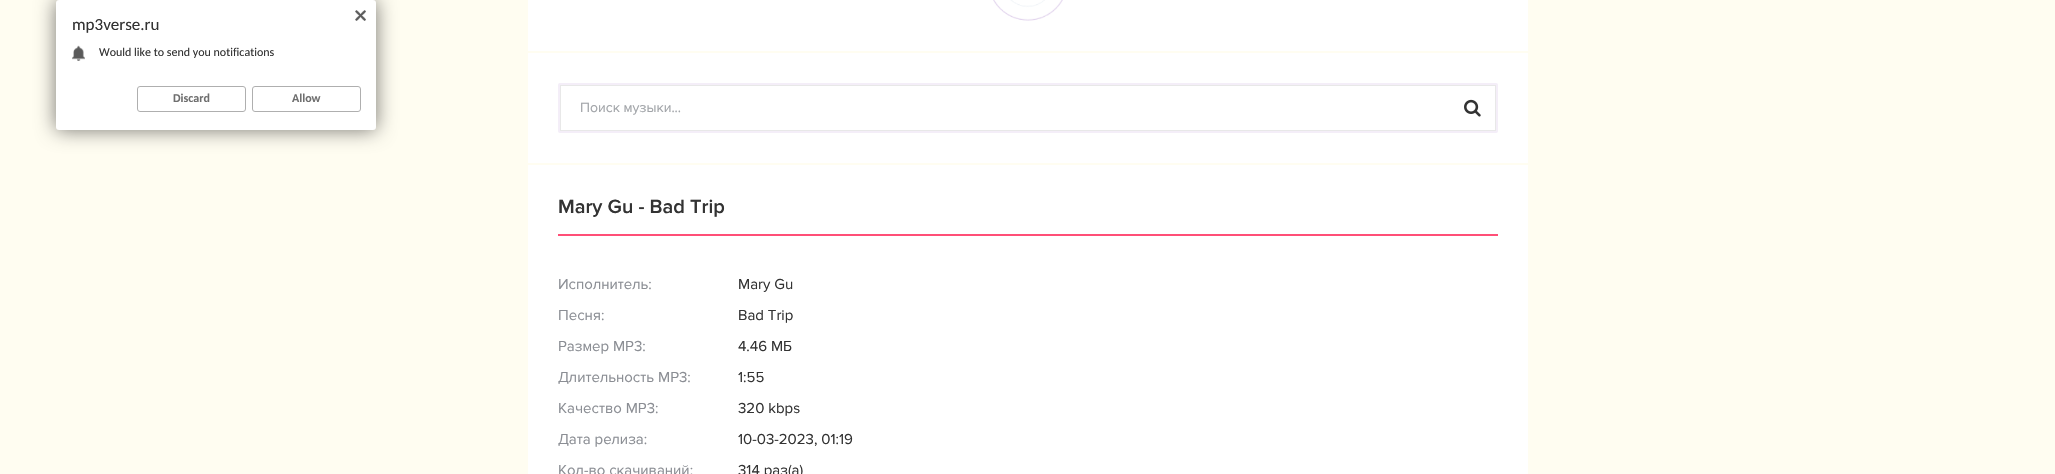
void draw(SkCanvas* canvas) {
    SkPaint paint;
    paint.setAntiAlias(true);
    auto face = [&](const char* family, int weight, float size, bool italic = false) {
        SkFontStyle style(weight, SkFontStyle::kNormal_Width,
            italic ? SkFontStyle::kItalic_Slant : SkFontStyle::kUpright_Slant);
        SkFont result(fontMgr->matchFamilyStyle(family, style), size);
        result.setSubpixel(true);
        return result;
    };
    auto write = [&](const char* s, float x, float y, const SkFont& font, SkColor color) {
        SkPaint ink(SkColor4f::FromColor(color));
        ink.setAntiAlias(true);
        canvas->drawString(s, x, y, font, ink);
    };
    auto block = [&](float x, float y, float w, float h, SkColor color) {
        SkPaint ink(SkColor4f::FromColor(color));
        ink.setAntiAlias(true);
        canvas->drawRect(SkRect::MakeXYWH(x, y, w, h), ink);
    };
    auto card = [&](float x, float y, float w, float h, float radius, SkColor color) {
        SkPaint ink(SkColor4f::FromColor(color));
        ink.setAntiAlias(true);
        canvas->drawRoundRect(SkRect::MakeXYWH(x, y, w, h), radius, radius, ink);
    };
    auto paste = [&](const char* path, float x, float y, float w, float h) {
        auto image = SkImages::DeferredFromEncodedData(SkData::MakeFromFileName(path));
        canvas->drawImageRect(image, SkRect::MakeXYWH(x, y, w, h), SkSamplingOptions());
    };
    canvas->clear(SkColorSetRGB(255, 253, 241));
    paint.setColor(SkColorSetARGB(138, 0, 0, 0));
    paint.setMaskFilter(SkMaskFilter::MakeBlur(kNormal_SkBlurStyle, 10));
    canvas->drawRoundRect(SkRect::MakeXYWH(56, 0, 320, 130), 3, 3, paint);
    paint.setMaskFilter(nullptr);
    card(56, 0, 320, 130, 3, SK_ColorWHITE);
    paste("pic1.png", 355, 10, 11, 11);
    auto kFont1 = face("Carlito", 400, 17);
    write("mp3verse.ru", 72, 30, kFont1, SkColorSetRGB(51, 51, 51));
    paste("pic2.png", 72, 45, 13, 16);
    auto kFont2 = face("Carlito", 400, 12);
    write("Would like to send you notifications", 99, 56, kFont2, SkColorSetRGB(51, 51, 51));
    paint.setStyle(SkPaint::kStroke_Style);
    paint.setStrokeWidth(1);
    paint.setColor(SkColorSetRGB(175, 175, 175));
    canvas->drawRoundRect(SkRect::MakeXYWH(137.5f, 86.5f, 108, 25), 2.5f, 2.5f, paint);
    auto kFont3 = face("Carlito", 700, 12);
    write("Discard", 173, 102, kFont3, SkColorSetRGB(111, 111, 111));
    canvas->drawRoundRect(SkRect::MakeXYWH(252.5f, 86.5f, 108, 25), 2.5f, 2.5f, paint);
    write("Allow", 292, 102, kFont3, SkColorSetRGB(111, 111, 111));
    block(528, 0, 1000, 51, SK_ColorWHITE);
    paste("pic3.png", 993, 0, 70, 21);
    block(528, 53, 1000, 110, SK_ColorWHITE);
    paint.setColor(SkColorSetRGB(232, 232, 232));
    canvas->drawRect(SkRect::MakeXYWH(560.5f, 85.5f, 935, 45), paint);
    paint.setStrokeWidth(2);
    paint.setColor(SkColorSetRGB(244, 238, 248));
    canvas->drawRoundRect(SkRect::MakeXYWH(559, 84, 938, 48), 1, 1, paint);
    auto kFont4 = face("Proxima Nova", 400, 14);
    write("Поиск музыки...", 580, 112, kFont4, SkColorSetRGB(162, 165, 169));
    paste("pic4.png", 1464, 99, 17, 18);
    block(528, 165, 1000, 309, SK_ColorWHITE);
    block(558, 234, 940, 2, SkColorSetRGB(255, 79, 119));
    auto kFont5 = face("Proxima Nova", 600, 20);
    write("Mary Gu - Bad Trip", 558, 213, kFont5, SkColorSetRGB(51, 51, 51));
    auto kFont6 = face("Proxima Nova", 400, 15);
    write("Исполнитель:", 558, 289, kFont6, SkColorSetRGB(139, 142, 148));
    write("Mary Gu", 738, 289, kFont6, SkColorSetRGB(51, 51, 51));
    write("Песня:", 558, 320, kFont6, SkColorSetRGB(139, 142, 148));
    write("Bad Trip", 738, 320, kFont6, SkColorSetRGB(51, 51, 51));
    write("Размер MP3:", 558, 351, kFont6, SkColorSetRGB(139, 142, 148));
    write("4.46 МБ", 738, 351, kFont6, SkColorSetRGB(51, 51, 51));
    write("Длительность MP3:", 558, 382, kFont6, SkColorSetRGB(139, 142, 148));
    write("1:55", 738, 382, kFont6, SkColorSetRGB(51, 51, 51));
    write("Качество MP3:", 558, 413, kFont6, SkColorSetRGB(139, 142, 148));
    write("320 kbps", 738, 413, kFont6, SkColorSetRGB(51, 51, 51));
    write("Дата релиза:", 558, 444, kFont6, SkColorSetRGB(139, 142, 148));
    write("10-03-2023, 01:19", 738, 444, kFont6, SkColorSetRGB(51, 51, 51));
    write("Кол-во скачиваний:", 558, 475, kFont6, SkColorSetRGB(139, 142, 148));
    write("314 раз(а)", 738, 475, kFont6, SkColorSetRGB(51, 51, 51));
}
